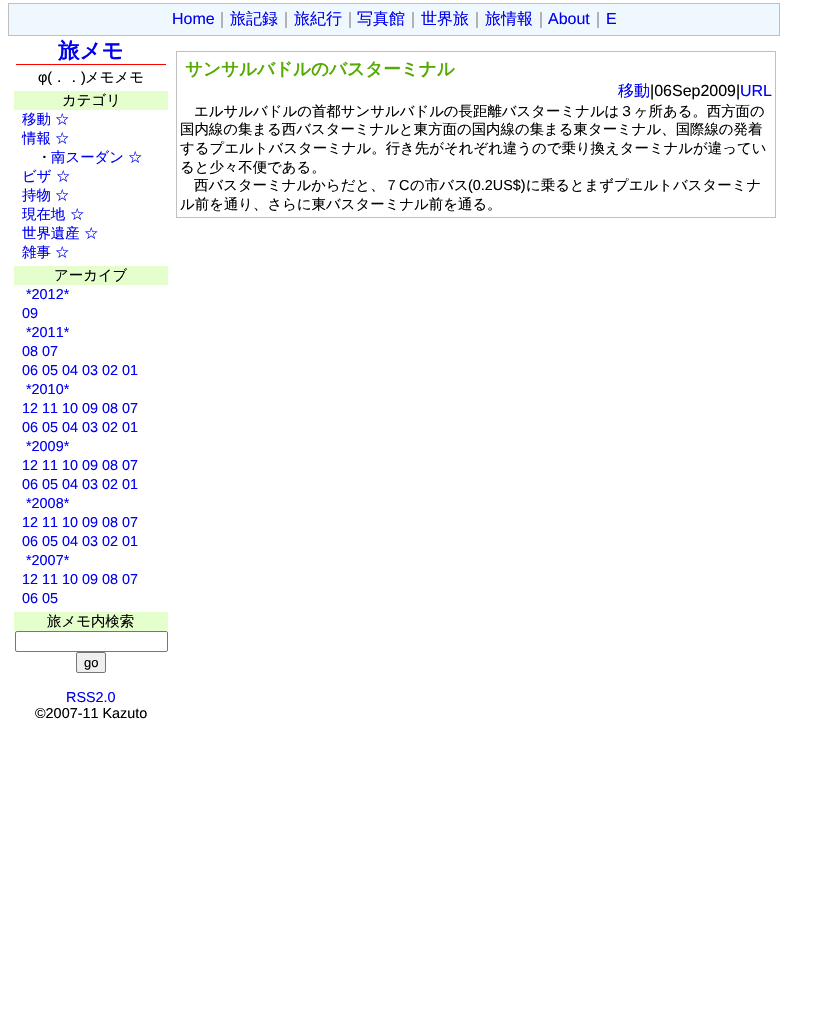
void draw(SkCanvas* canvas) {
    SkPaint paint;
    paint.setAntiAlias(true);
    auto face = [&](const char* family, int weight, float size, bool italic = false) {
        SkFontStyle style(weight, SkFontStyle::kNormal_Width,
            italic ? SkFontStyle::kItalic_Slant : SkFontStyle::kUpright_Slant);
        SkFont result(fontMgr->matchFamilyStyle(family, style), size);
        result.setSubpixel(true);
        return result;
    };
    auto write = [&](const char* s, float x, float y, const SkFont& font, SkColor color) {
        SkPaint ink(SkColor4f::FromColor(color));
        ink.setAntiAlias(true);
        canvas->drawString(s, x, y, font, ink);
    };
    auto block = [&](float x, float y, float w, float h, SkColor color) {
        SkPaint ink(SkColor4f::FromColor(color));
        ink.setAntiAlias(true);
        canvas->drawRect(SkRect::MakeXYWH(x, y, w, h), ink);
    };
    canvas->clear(SK_ColorWHITE);
    paint.setColor(SkColorSetRGB(240, 248, 255));
    canvas->drawRect(SkRect::MakeXYWH(8.5f, 3.5f, 771, 32), paint);
    paint.setStyle(SkPaint::kStroke_Style);
    paint.setStrokeWidth(1);
    paint.setColor(SkColorSetRGB(192, 192, 192));
    canvas->drawRect(SkRect::MakeXYWH(8.5f, 3.5f, 771, 32), paint);
    auto kFont1 = face("Liberation Sans", 400, 16);
    write("Home", 172, 24, kFont1, SkColorSetRGB(0, 0, 238));
    auto kFont2 = face("WenQuanYi Zen Hei", 500, 16);
    write("｜", 214, 24, kFont2, SkColorSetRGB(128, 128, 128));
    write("旅記録", 230, 24, kFont2, SkColorSetRGB(0, 0, 238));
    write("｜", 278, 24, kFont2, SkColorSetRGB(128, 128, 128));
    write("旅紀行", 294, 24, kFont2, SkColorSetRGB(0, 0, 238));
    write("｜", 342, 24, kFont2, SkColorSetRGB(128, 128, 128));
    write("写真館", 357, 24, kFont2, SkColorSetRGB(0, 0, 238));
    write("｜", 405, 24, kFont2, SkColorSetRGB(128, 128, 128));
    write("世界旅", 421, 24, kFont2, SkColorSetRGB(0, 0, 238));
    write("｜", 469, 24, kFont2, SkColorSetRGB(128, 128, 128));
    write("旅情報", 485, 24, kFont2, SkColorSetRGB(0, 0, 238));
    write("｜", 533, 24, kFont2, SkColorSetRGB(128, 128, 128));
    write("About", 548, 24, kFont1, SkColorSetRGB(0, 0, 238));
    write("｜", 590, 24, kFont2, SkColorSetRGB(128, 128, 128));
    write("E", 606, 24, kFont1, SkColorSetRGB(0, 0, 238));
    block(16, 64, 150, 1, SkColorSetRGB(255, 0, 0));
    auto kFont3 = face("WenQuanYi Zen Hei", 700, 21.5f);
    write("旅メモ", 58, 58, kFont3, SkColorSetRGB(0, 0, 238));
    auto kFont4 = face("Liberation Sans", 400, 14.4f);
    write("φ(", 38, 82, kFont4, SK_ColorBLACK);
    auto kFont5 = face("WenQuanYi Zen Hei", 500, 14.4f);
    write("．．", 52, 82, kFont5, SK_ColorBLACK);
    write(")", 81, 82, kFont4, SK_ColorBLACK);
    write("メモメモ", 85, 82, kFont5, SK_ColorBLACK);
    block(14, 91, 154, 19, SkColorSetRGB(229, 255, 204));
    write("カテゴリ", 62, 105, kFont5, SK_ColorBLACK);
    write("移動", 22, 124, kFont5, SkColorSetRGB(0, 0, 238));
    write("☆", 55, 124, kFont5, SkColorSetRGB(0, 0, 238));
    write("情報", 22, 143, kFont5, SkColorSetRGB(0, 0, 238));
    write("☆", 55, 143, kFont5, SkColorSetRGB(0, 0, 238));
    write("・", 37, 162, kFont5, SK_ColorBLACK);
    write("南スーダン", 51, 162, kFont5, SkColorSetRGB(0, 0, 238));
    write("☆", 128, 162, kFont5, SkColorSetRGB(0, 0, 238));
    write("ビザ", 22, 181, kFont5, SkColorSetRGB(0, 0, 238));
    write("☆", 56, 181, kFont5, SkColorSetRGB(0, 0, 238));
    write("持物", 22, 200, kFont5, SkColorSetRGB(0, 0, 238));
    write("☆", 55, 200, kFont5, SkColorSetRGB(0, 0, 238));
    write("現在地", 22, 219, kFont5, SkColorSetRGB(0, 0, 238));
    write("☆", 70, 219, kFont5, SkColorSetRGB(0, 0, 238));
    write("世界遺産", 22, 238, kFont5, SkColorSetRGB(0, 0, 238));
    write("☆", 84, 238, kFont5, SkColorSetRGB(0, 0, 238));
    write("雑事", 22, 257, kFont5, SkColorSetRGB(0, 0, 238));
    write("☆", 55, 257, kFont5, SkColorSetRGB(0, 0, 238));
    block(14, 266, 154, 19, SkColorSetRGB(229, 255, 204));
    write("アーカイブ", 54, 280, kFont5, SK_ColorBLACK);
    write("*2012*", 26, 299, kFont4, SkColorSetRGB(0, 0, 238));
    write("09", 22, 318, kFont4, SkColorSetRGB(0, 0, 238));
    write("*2011*", 26, 337, kFont4, SkColorSetRGB(0, 0, 238));
    write("08 07", 22, 356, kFont4, SkColorSetRGB(0, 0, 238));
    write("06 05 04 03 02 01", 22, 375, kFont4, SkColorSetRGB(0, 0, 238));
    write("*2010*", 26, 394, kFont4, SkColorSetRGB(0, 0, 238));
    write("12 11 10 09 08 07", 22, 413, kFont4, SkColorSetRGB(0, 0, 238));
    write("06 05 04 03 02 01", 22, 432, kFont4, SkColorSetRGB(0, 0, 238));
    write("*2009*", 26, 451, kFont4, SkColorSetRGB(0, 0, 238));
    write("12 11 10 09 08 07", 22, 470, kFont4, SkColorSetRGB(0, 0, 238));
    write("06 05 04 03 02 01", 22, 489, kFont4, SkColorSetRGB(0, 0, 238));
    write("*2008*", 26, 508, kFont4, SkColorSetRGB(0, 0, 238));
    write("12 11 10 09 08 07", 22, 527, kFont4, SkColorSetRGB(0, 0, 238));
    write("06 05 04 03 02 01", 22, 546, kFont4, SkColorSetRGB(0, 0, 238));
    write("*2007*", 26, 565, kFont4, SkColorSetRGB(0, 0, 238));
    write("12 11 10 09 08 07", 22, 584, kFont4, SkColorSetRGB(0, 0, 238));
    write("06 05", 22, 603, kFont4, SkColorSetRGB(0, 0, 238));
    block(14, 612, 154, 19, SkColorSetRGB(229, 255, 204));
    write("旅メモ内検索", 47, 626, kFont5, SK_ColorBLACK);
    paint.setColor(SkColorSetRGB(118, 118, 118));
    canvas->drawRoundRect(SkRect::MakeXYWH(15.5f, 631.5f, 152, 20), 1.5f, 1.5f, paint);
    paint.setStyle(SkPaint::kFill_Style);
    paint.setColor(SkColorSetRGB(239, 239, 239));
    canvas->drawRoundRect(SkRect::MakeXYWH(76.5f, 652.5f, 29, 20), 1.5f, 1.5f, paint);
    paint.setStyle(SkPaint::kStroke_Style);
    paint.setColor(SkColorSetRGB(118, 118, 118));
    canvas->drawRoundRect(SkRect::MakeXYWH(76.5f, 652.5f, 29, 20), 1.5f, 1.5f, paint);
    auto kFont6 = face("Liberation Sans", 400, 13);
    write("go", 84, 667, kFont6, SK_ColorBLACK);
    write("RSS2.0", 66, 702, kFont4, SkColorSetRGB(0, 0, 238));
    write("©2007-11 Kazuto", 35, 718, kFont4, SK_ColorBLACK);
    paint.setColor(SkColorSetRGB(192, 192, 192));
    canvas->drawRect(SkRect::MakeXYWH(176.5f, 51.5f, 599, 166), paint);
    auto kFont7 = face("WenQuanYi Zen Hei", 700, 17.6f);
    write("サンサルバドルのバスターミナル", 185, 75, kFont7, SkColorSetRGB(84, 170, 0));
    write("移動", 618, 96, kFont2, SkColorSetRGB(0, 0, 238));
    write("|06Sep2009|", 650, 96, kFont1, SK_ColorBLACK);
    write("URL", 740, 96, kFont1, SkColorSetRGB(0, 0, 238));
    write("エルサルバドルの首都サンサルバドルの長距離バスターミナルは３ヶ所ある。西方面の", 194, 116, kFont5, SK_ColorBLACK);
    write("国内線の集まる西バスターミナルと東方面の国内線の集まる東ターミナル、国際線の発着", 180, 134, kFont5, SK_ColorBLACK);
    write("するプエルトバスターミナル。行き先がそれぞれ違うので乗り換えターミナルが違ってい", 180, 153, kFont5, SK_ColorBLACK);
    write("ると少々不便である。", 180, 172, kFont5, SK_ColorBLACK);
    write("西バスターミナルからだと、７", 194, 190, kFont5, SK_ColorBLACK);
    write("C", 399, 190, kFont4, SK_ColorBLACK);
    write("の市バス", 410, 190, kFont5, SK_ColorBLACK);
    write("(0.2US$)", 468, 190, kFont4, SK_ColorBLACK);
    write("に乗るとまずプエルトバスターミナ", 526, 190, kFont5, SK_ColorBLACK);
    write("ル前を通り、さらに東バスターミナル前を通る。", 180, 209, kFont5, SK_ColorBLACK);
}
